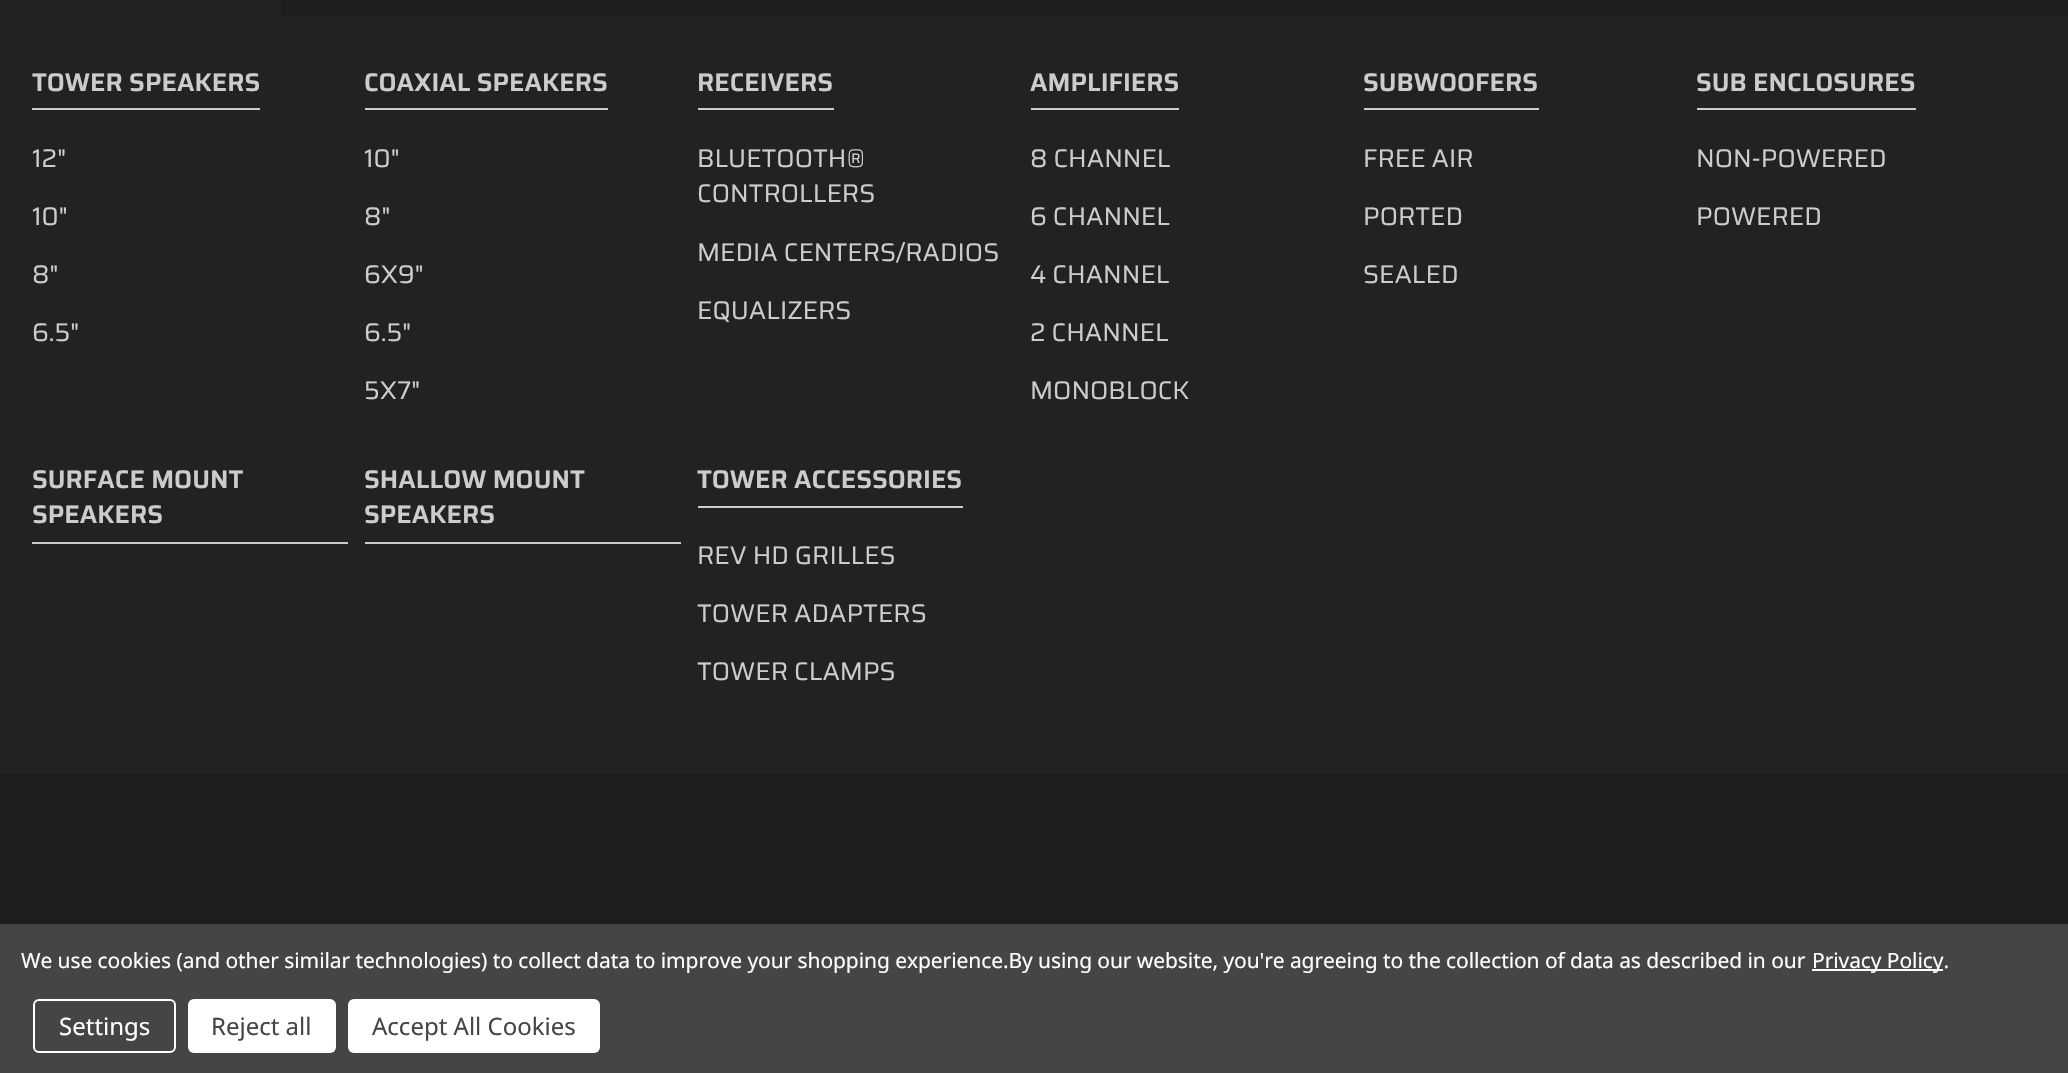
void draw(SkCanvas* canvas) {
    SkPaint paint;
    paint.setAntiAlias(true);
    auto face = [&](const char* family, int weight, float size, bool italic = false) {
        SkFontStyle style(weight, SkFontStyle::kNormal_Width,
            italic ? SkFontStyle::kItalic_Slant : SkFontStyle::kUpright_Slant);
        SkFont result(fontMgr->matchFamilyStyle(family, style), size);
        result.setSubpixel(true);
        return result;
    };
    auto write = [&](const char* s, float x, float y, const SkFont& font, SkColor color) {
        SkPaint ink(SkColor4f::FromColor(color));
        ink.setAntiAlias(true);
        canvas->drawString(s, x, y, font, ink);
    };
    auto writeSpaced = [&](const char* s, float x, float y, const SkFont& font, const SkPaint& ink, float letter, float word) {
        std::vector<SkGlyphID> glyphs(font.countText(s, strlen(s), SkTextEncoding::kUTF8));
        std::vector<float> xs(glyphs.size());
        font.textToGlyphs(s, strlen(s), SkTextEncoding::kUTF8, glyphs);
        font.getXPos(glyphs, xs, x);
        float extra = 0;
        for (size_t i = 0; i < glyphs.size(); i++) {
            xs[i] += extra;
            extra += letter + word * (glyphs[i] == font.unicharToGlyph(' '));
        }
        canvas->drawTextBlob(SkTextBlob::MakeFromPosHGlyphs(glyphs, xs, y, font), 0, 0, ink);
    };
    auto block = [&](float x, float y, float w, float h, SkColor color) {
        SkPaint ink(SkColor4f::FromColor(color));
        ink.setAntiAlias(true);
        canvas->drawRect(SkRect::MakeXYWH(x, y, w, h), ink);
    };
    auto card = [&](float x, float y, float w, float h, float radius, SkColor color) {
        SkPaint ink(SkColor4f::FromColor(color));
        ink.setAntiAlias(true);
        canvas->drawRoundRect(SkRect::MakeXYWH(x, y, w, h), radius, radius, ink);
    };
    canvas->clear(SkColorSetRGB(30, 30, 30));
    block(0, 0, 281, 17, SkColorSetRGB(34, 34, 34));
    block(0, 17, 2068, 757, SkColorSetRGB(34, 34, 34));
    block(32, 108, 228, 2, SkColorSetRGB(204, 204, 204));
    auto kFont1 = face("Saira", 600, 25.5f);
    write("TOWER SPEAKERS", 32, 91, kFont1, SkColorSetRGB(204, 204, 204));
    auto kFont2 = face("Saira", 400, 25.5f);
    write("12\"", 32, 167, kFont2, SkColorSetRGB(204, 204, 204));
    write("10\"", 32, 225, kFont2, SkColorSetRGB(204, 204, 204));
    write("8\"", 32, 283, kFont2, SkColorSetRGB(204, 204, 204));
    write("6.5\"", 32, 341, kFont2, SkColorSetRGB(204, 204, 204));
    block(365, 108, 243, 2, SkColorSetRGB(204, 204, 204));
    write("COAXIAL SPEAKERS", 364, 91, kFont1, SkColorSetRGB(204, 204, 204));
    write("10\"", 364, 167, kFont2, SkColorSetRGB(204, 204, 204));
    write("8\"", 364, 225, kFont2, SkColorSetRGB(204, 204, 204));
    write("6X9\"", 364, 283, kFont2, SkColorSetRGB(204, 204, 204));
    write("6.5\"", 364, 341, kFont2, SkColorSetRGB(204, 204, 204));
    write("5X7\"", 364, 399, kFont2, SkColorSetRGB(204, 204, 204));
    block(698, 108, 136, 2, SkColorSetRGB(204, 204, 204));
    write("RECEIVERS", 697, 91, kFont1, SkColorSetRGB(204, 204, 204));
    write("BLUETOOTH®", 697, 167, kFont2, SkColorSetRGB(204, 204, 204));
    write("CONTROLLERS", 697, 202, kFont2, SkColorSetRGB(204, 204, 204));
    write("MEDIA CENTERS/RADIOS", 697, 261, kFont2, SkColorSetRGB(204, 204, 204));
    write("EQUALIZERS", 697, 319, kFont2, SkColorSetRGB(204, 204, 204));
    block(1031, 108, 148, 2, SkColorSetRGB(204, 204, 204));
    write("AMPLIFIERS", 1030, 91, kFont1, SkColorSetRGB(204, 204, 204));
    write("8 CHANNEL", 1030, 167, kFont2, SkColorSetRGB(204, 204, 204));
    write("6 CHANNEL", 1030, 225, kFont2, SkColorSetRGB(204, 204, 204));
    write("4 CHANNEL", 1030, 283, kFont2, SkColorSetRGB(204, 204, 204));
    write("2 CHANNEL", 1030, 341, kFont2, SkColorSetRGB(204, 204, 204));
    write("MONOBLOCK", 1030, 399, kFont2, SkColorSetRGB(204, 204, 204));
    block(1364, 108, 175, 2, SkColorSetRGB(204, 204, 204));
    write("SUBWOOFERS", 1363, 91, kFont1, SkColorSetRGB(204, 204, 204));
    write("FREE AIR", 1363, 167, kFont2, SkColorSetRGB(204, 204, 204));
    write("PORTED", 1363, 225, kFont2, SkColorSetRGB(204, 204, 204));
    write("SEALED", 1363, 283, kFont2, SkColorSetRGB(204, 204, 204));
    block(1697, 108, 219, 2, SkColorSetRGB(204, 204, 204));
    write("SUB ENCLOSURES", 1696, 91, kFont1, SkColorSetRGB(204, 204, 204));
    write("NON-POWERED", 1696, 167, kFont2, SkColorSetRGB(204, 204, 204));
    write("POWERED", 1696, 225, kFont2, SkColorSetRGB(204, 204, 204));
    block(32, 542, 316, 2, SkColorSetRGB(204, 204, 204));
    write("SURFACE MOUNT", 32, 488, kFont1, SkColorSetRGB(204, 204, 204));
    write("SPEAKERS", 32, 523, kFont1, SkColorSetRGB(204, 204, 204));
    block(365, 542, 316, 2, SkColorSetRGB(204, 204, 204));
    write("SHALLOW MOUNT", 364, 488, kFont1, SkColorSetRGB(204, 204, 204));
    write("SPEAKERS", 364, 523, kFont1, SkColorSetRGB(204, 204, 204));
    block(698, 506, 265, 2, SkColorSetRGB(204, 204, 204));
    write("TOWER ACCESSORIES", 697, 488, kFont1, SkColorSetRGB(204, 204, 204));
    write("REV HD GRILLES", 697, 564, kFont2, SkColorSetRGB(204, 204, 204));
    write("TOWER ADAPTERS", 697, 622, kFont2, SkColorSetRGB(204, 204, 204));
    write("TOWER CLAMPS", 697, 680, kFont2, SkColorSetRGB(204, 204, 204));
    block(0, 924, 2068, 149, SkColorSetRGB(69, 69, 69));
    auto kFont3 = face("Noto Sans", 400, 21);
    paint.setColor(SK_ColorWHITE);
    writeSpaced("We use cookies (and other similar technologies) to collect data to improve your shopping experience.By using our website, you're agreeing to the collection of data as described in our", 21, 968, kFont3, paint, -0.08f, 0);
    block(1812, 969, 131, 2, SK_ColorWHITE);
    writeSpaced("Privacy Policy.", 1812, 968, kFont3, paint, -0.08f, 0);
    paint.setStyle(SkPaint::kStroke_Style);
    paint.setStrokeWidth(2);
    canvas->drawRoundRect(SkRect::MakeXYWH(34, 1000, 141, 52), 5, 5, paint);
    auto kFont4 = face("Noto Sans", 400, 24);
    write("Settings", 59, 1035, kFont4, SK_ColorWHITE);
    card(188, 999, 148, 54, 6, SK_ColorWHITE);
    write("Reject all", 211, 1035, kFont4, SkColorSetRGB(69, 69, 69));
    card(348, 999, 252, 54, 6, SK_ColorWHITE);
    write("Accept All Cookies", 372, 1035, kFont4, SkColorSetRGB(69, 69, 69));
}
